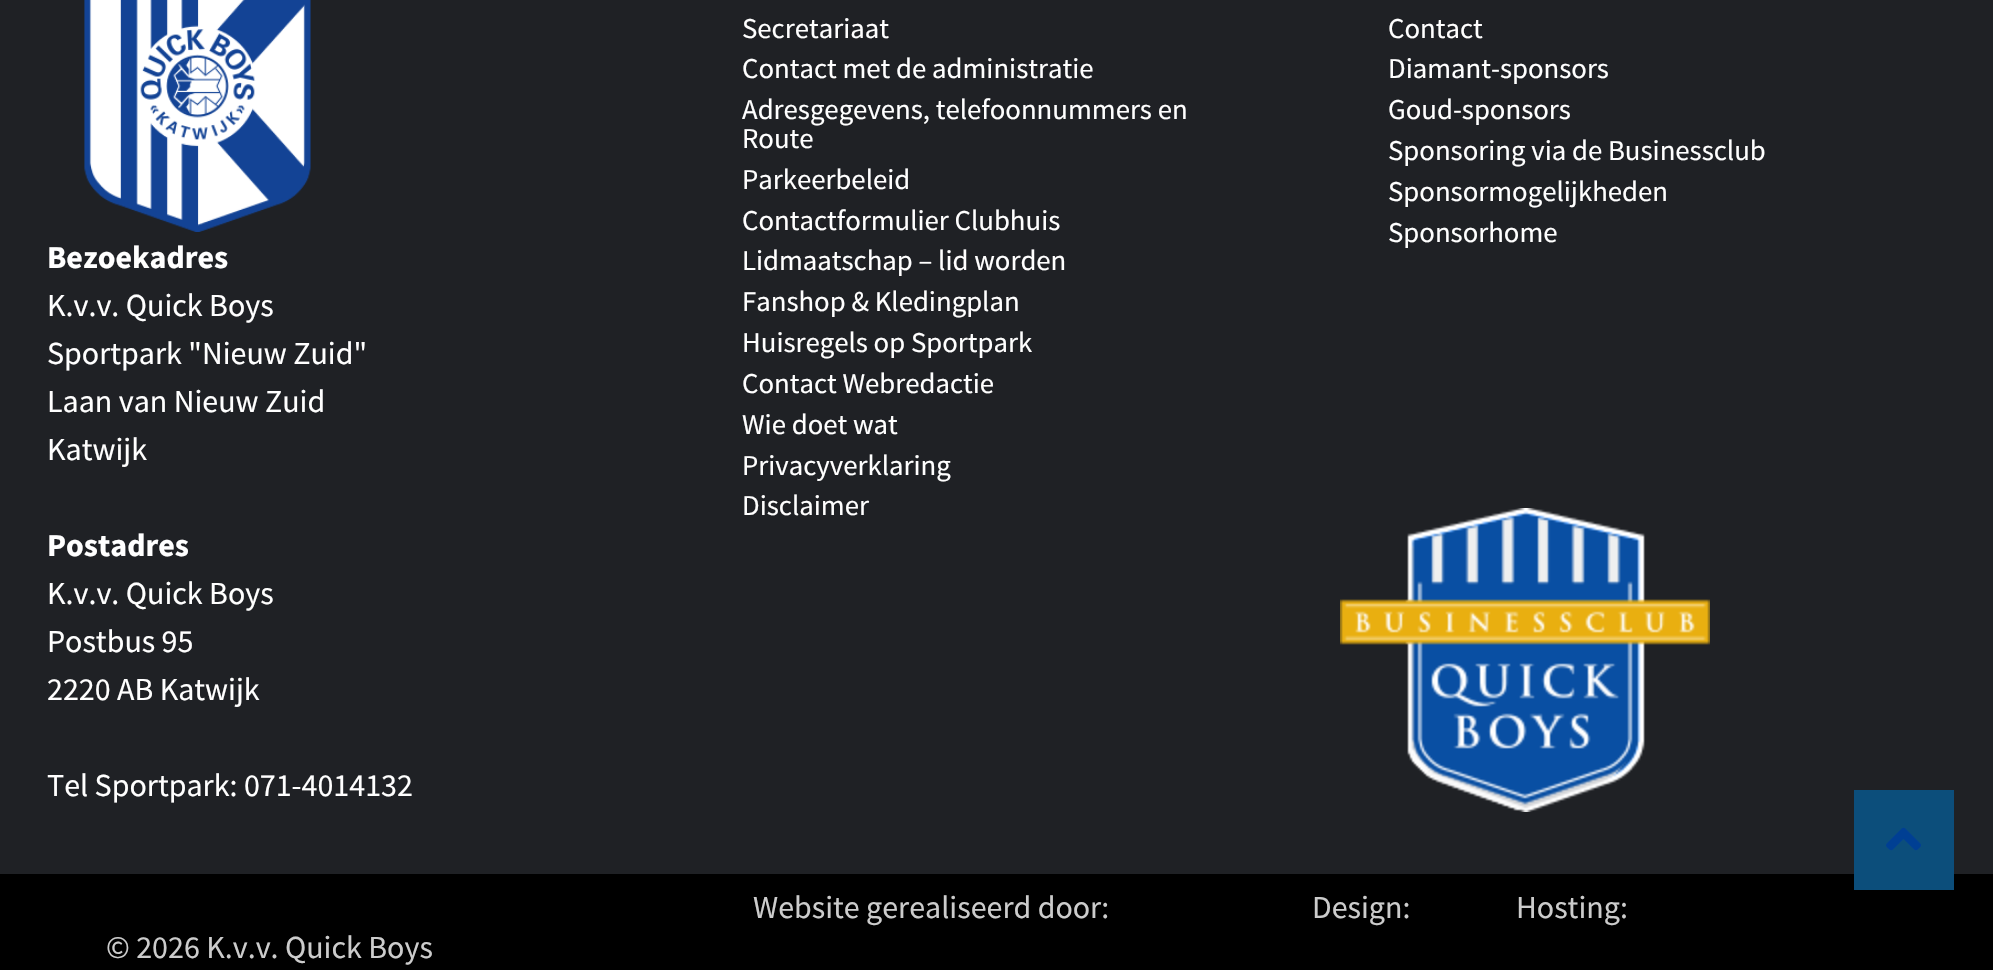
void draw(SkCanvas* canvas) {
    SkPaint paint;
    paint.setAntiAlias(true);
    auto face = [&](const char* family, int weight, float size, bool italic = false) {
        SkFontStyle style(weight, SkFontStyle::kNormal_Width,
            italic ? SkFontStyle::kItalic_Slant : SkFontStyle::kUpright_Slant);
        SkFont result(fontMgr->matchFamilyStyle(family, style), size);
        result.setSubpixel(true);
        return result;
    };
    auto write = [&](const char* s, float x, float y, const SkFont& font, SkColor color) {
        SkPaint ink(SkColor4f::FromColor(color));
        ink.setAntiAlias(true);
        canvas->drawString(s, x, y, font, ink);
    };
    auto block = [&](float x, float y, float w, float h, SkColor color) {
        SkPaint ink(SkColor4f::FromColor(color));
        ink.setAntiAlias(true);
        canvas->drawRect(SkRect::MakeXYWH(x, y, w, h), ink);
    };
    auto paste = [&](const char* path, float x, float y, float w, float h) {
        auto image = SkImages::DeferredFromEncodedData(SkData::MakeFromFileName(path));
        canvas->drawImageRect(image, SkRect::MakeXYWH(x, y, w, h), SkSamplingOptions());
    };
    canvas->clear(SkColorSetRGB(31, 33, 37));
    auto kFont1 = face("Source Sans Pro", 400, 28.75f);
    write("Secretariaat", 742, 38, kFont1, SK_ColorWHITE);
    write("Contact met de administratie", 742, 78, kFont1, SK_ColorWHITE);
    write("Adresgegevens, telefoonnummers en", 742, 119, kFont1, SK_ColorWHITE);
    write("Route", 742, 148, kFont1, SK_ColorWHITE);
    write("Parkeerbeleid", 742, 189, kFont1, SK_ColorWHITE);
    write("Contactformulier Clubhuis", 742, 230, kFont1, SK_ColorWHITE);
    write("Lidmaatschap – lid worden", 742, 270, kFont1, SK_ColorWHITE);
    write("Fanshop & Kledingplan", 742, 311, kFont1, SK_ColorWHITE);
    write("Huisregels op Sportpark", 742, 352, kFont1, SK_ColorWHITE);
    write("Contact Webredactie", 742, 393, kFont1, SK_ColorWHITE);
    write("Wie doet wat", 742, 434, kFont1, SK_ColorWHITE);
    write("Privacyverklaring", 742, 475, kFont1, SK_ColorWHITE);
    write("Disclaimer", 742, 515, kFont1, SK_ColorWHITE);
    paste("pic1.png", 1340, 508, 370, 304);
    write("Contact", 1388, 38, kFont1, SK_ColorWHITE);
    write("Diamant-sponsors", 1388, 78, kFont1, SK_ColorWHITE);
    write("Goud-sponsors", 1388, 119, kFont1, SK_ColorWHITE);
    write("Sponsoring via de Businessclub", 1388, 160, kFont1, SK_ColorWHITE);
    write("Sponsormogelijkheden", 1388, 201, kFont1, SK_ColorWHITE);
    write("Sponsorhome", 1388, 242, kFont1, SK_ColorWHITE);
    paste("pic2.png", 84, 0, 227, 232);
    auto kFont2 = face("Source Sans Pro", 700, 32);
    write("Bezoekadres", 47, 268, kFont2, SK_ColorWHITE);
    auto kFont3 = face("Source Sans Pro", 400, 32);
    write("K.v.v. Quick Boys", 47, 316, kFont3, SK_ColorWHITE);
    write("Sportpark \"Nieuw Zuid\"", 47, 364, kFont3, SK_ColorWHITE);
    write("Laan van Nieuw Zuid", 47, 412, kFont3, SK_ColorWHITE);
    write("Katwijk", 47, 460, kFont3, SK_ColorWHITE);
    write("Postadres", 47, 556, kFont2, SK_ColorWHITE);
    write("K.v.v. Quick Boys", 47, 604, kFont3, SK_ColorWHITE);
    write("Postbus 95", 47, 652, kFont3, SK_ColorWHITE);
    write("2220 AB Katwijk", 47, 700, kFont3, SK_ColorWHITE);
    write("Tel Sportpark: 071-4014132", 47, 796, kFont3, SK_ColorWHITE);
    block(0, 874, 1993, 96, SK_ColorBLACK);
    write("Website gerealiseerd door:", 753, 918, kFont3, SkColorSetRGB(204, 204, 204));
    write("Design:", 1312, 918, kFont3, SkColorSetRGB(204, 204, 204));
    write("Hosting:", 1516, 918, kFont3, SkColorSetRGB(204, 204, 204));
    write("© 2026 K.v.v. Quick Boys", 106, 958, kFont3, SkColorSetRGB(204, 204, 204));
    block(1854, 790, 100, 100, SkColorSetRGB(12, 78, 123));
    paste("pic3.png", 1886, 827, 35, 24);
}
